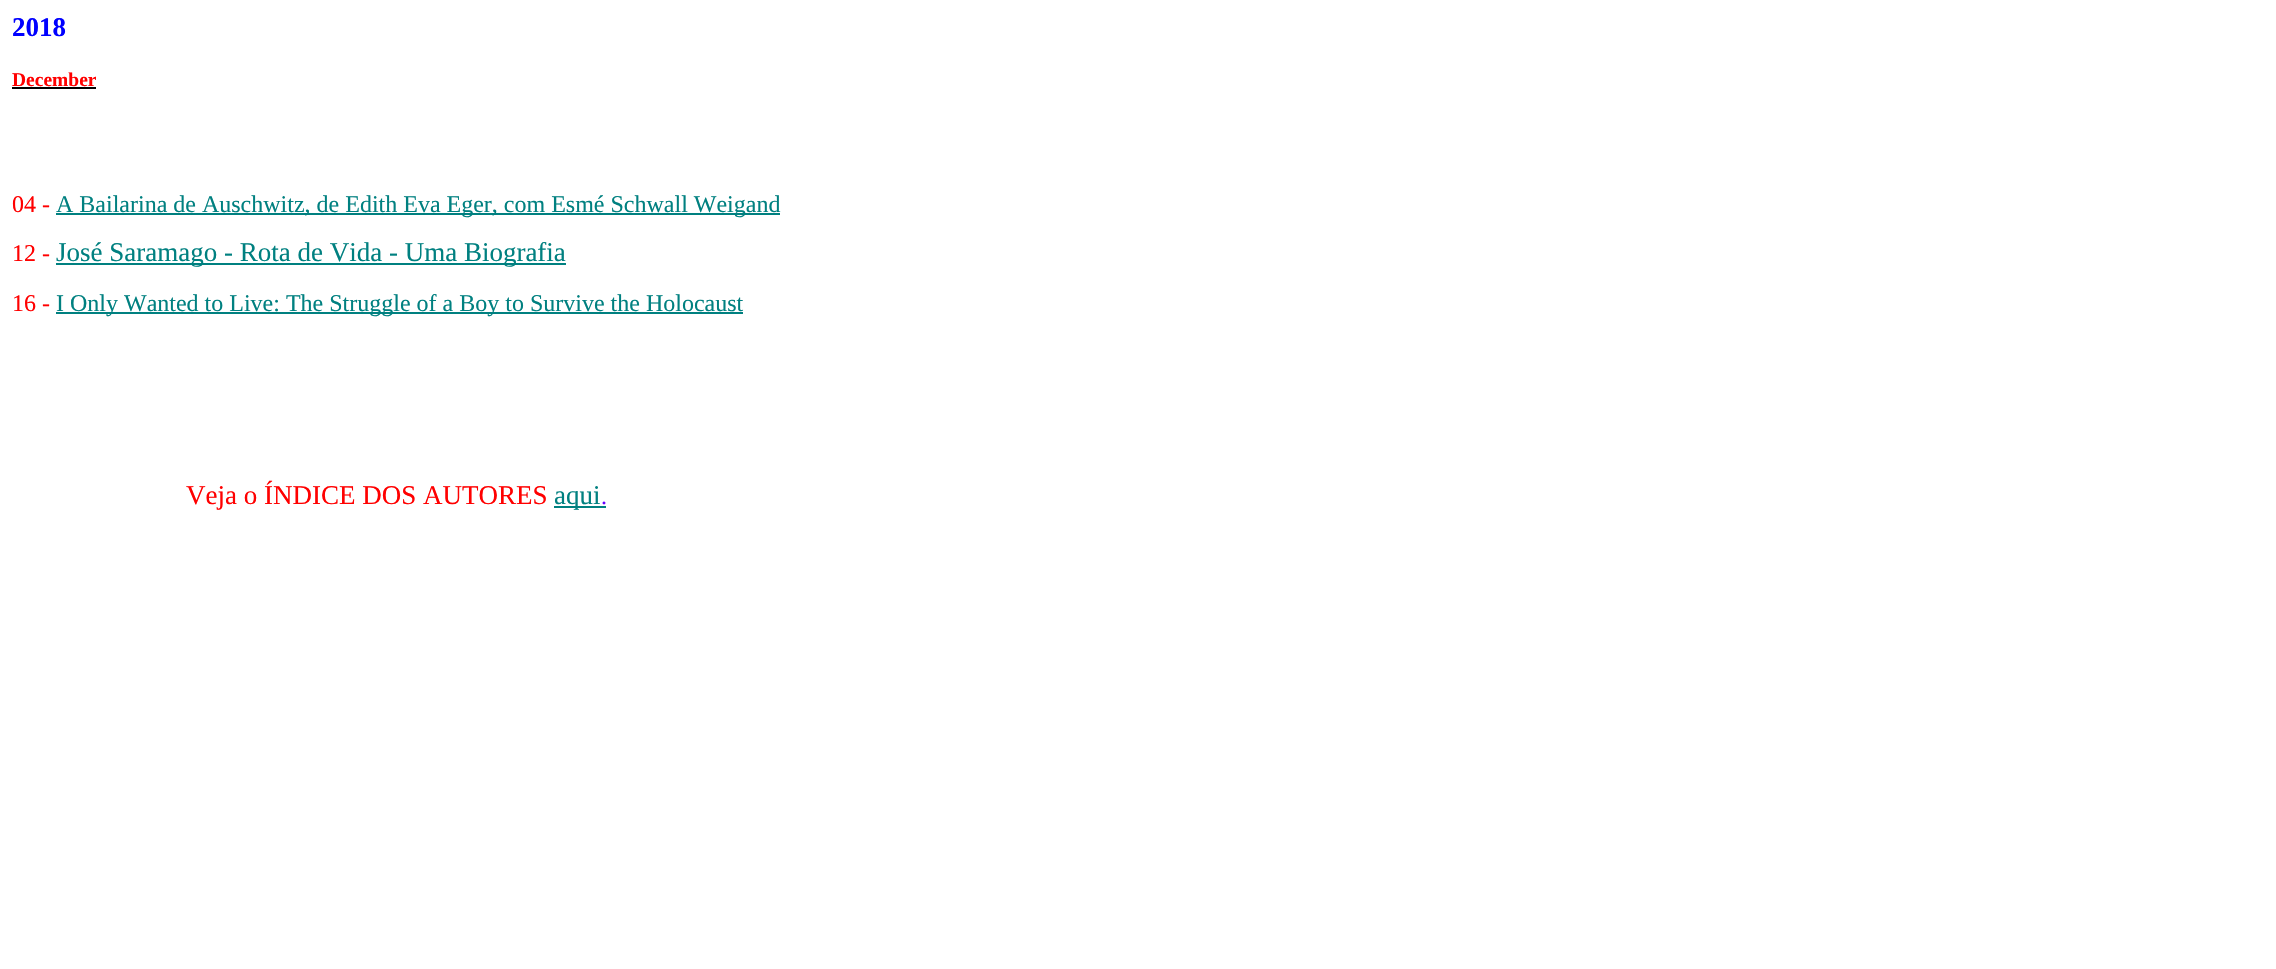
void draw(SkCanvas* canvas) {
    SkPaint paint;
    paint.setAntiAlias(true);
    auto face = [&](const char* family, int weight, float size, bool italic = false) {
        SkFontStyle style(weight, SkFontStyle::kNormal_Width,
            italic ? SkFontStyle::kItalic_Slant : SkFontStyle::kUpright_Slant);
        SkFont result(fontMgr->matchFamilyStyle(family, style), size);
        result.setSubpixel(true);
        return result;
    };
    auto write = [&](const char* s, float x, float y, const SkFont& font, SkColor color) {
        SkPaint ink(SkColor4f::FromColor(color));
        ink.setAntiAlias(true);
        canvas->drawString(s, x, y, font, ink);
    };
    auto block = [&](float x, float y, float w, float h, SkColor color) {
        SkPaint ink(SkColor4f::FromColor(color));
        ink.setAntiAlias(true);
        canvas->drawRect(SkRect::MakeXYWH(x, y, w, h), ink);
    };
    canvas->clear(SK_ColorWHITE);
    auto kFont1 = face("Liberation Serif", 700, 27);
    write("2018", 12, 36, kFont1, SkColorSetRGB(0, 0, 255));
    auto kFont2 = face("Liberation Serif", 700, 19.5f);
    write("December", 12, 86, kFont2, SkColorSetRGB(255, 0, 0));
    block(12, 87, 84, 2, SK_ColorBLACK);
    auto kFont3 = face("Liberation Serif", 400, 24);
    write("04 -", 12, 212, kFont3, SkColorSetRGB(255, 0, 0));
    block(56, 213, 724, 2, SkColorSetRGB(0, 128, 128));
    write("A Bailarina de Auschwitz, de Edith Eva Eger, com Esmé Schwall Weigand", 56, 212, kFont3, SkColorSetRGB(0, 128, 128));
    write("12 -", 12, 261, kFont3, SkColorSetRGB(255, 0, 0));
    block(56, 263, 510, 2, SkColorSetRGB(0, 128, 128));
    auto kFont4 = face("Liberation Serif", 400, 27);
    write("José Saramago - Rota de Vida - Uma Biografia", 56, 261, kFont4, SkColorSetRGB(0, 128, 128));
    write("16 -", 12, 311, kFont3, SkColorSetRGB(255, 0, 0));
    block(56, 312, 687, 2, SkColorSetRGB(0, 128, 128));
    write("I Only Wanted to Live: The Struggle of a Boy to Survive the Holocaust", 56, 311, kFont3, SkColorSetRGB(0, 128, 128));
    write("Veja o ÍNDICE DOS AUTORES", 186, 504, kFont4, SkColorSetRGB(255, 0, 0));
    block(554, 506, 46, 2, SkColorSetRGB(0, 128, 128));
    write("aqui", 554, 504, kFont4, SkColorSetRGB(0, 128, 128));
    write(".", 601, 504, kFont3, SkColorSetRGB(102, 0, 255));
    block(600, 506, 6, 2, SkColorSetRGB(0, 128, 128));
}
